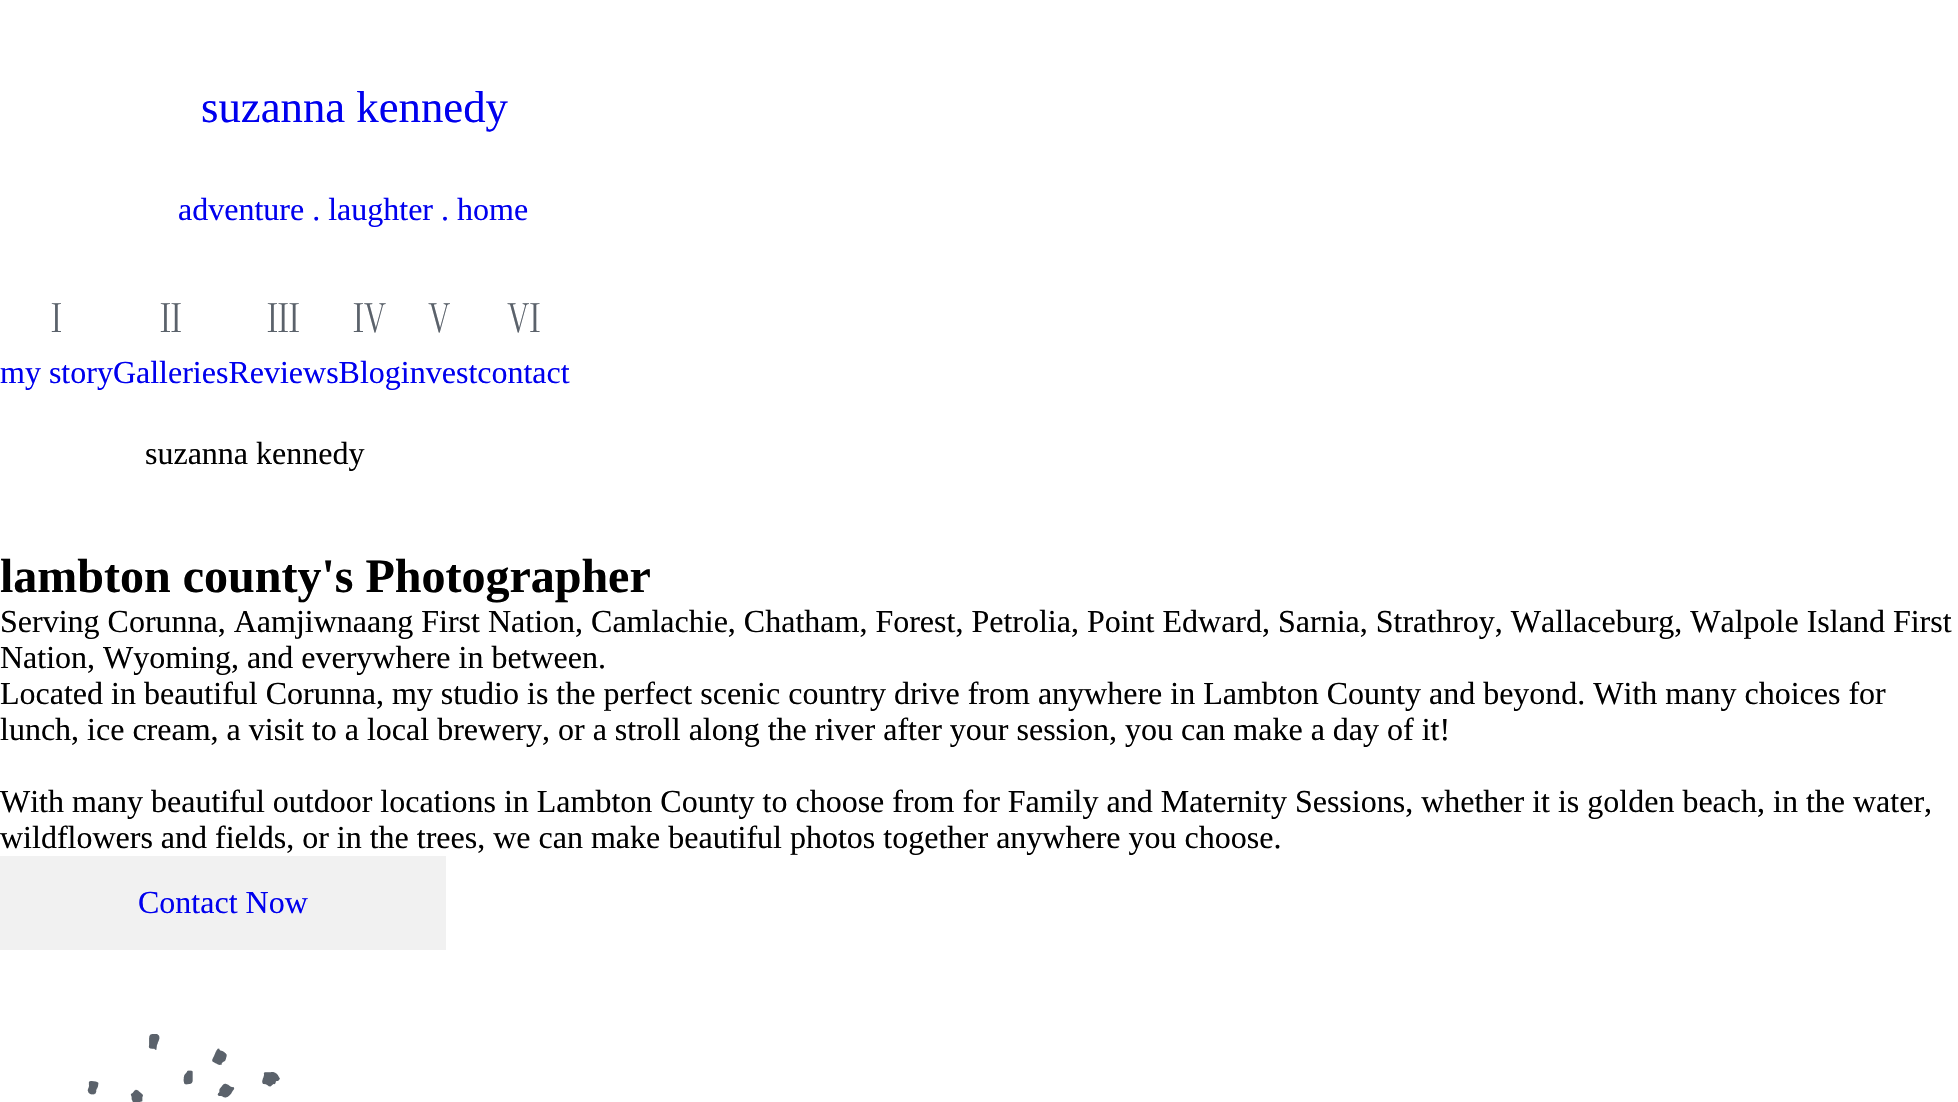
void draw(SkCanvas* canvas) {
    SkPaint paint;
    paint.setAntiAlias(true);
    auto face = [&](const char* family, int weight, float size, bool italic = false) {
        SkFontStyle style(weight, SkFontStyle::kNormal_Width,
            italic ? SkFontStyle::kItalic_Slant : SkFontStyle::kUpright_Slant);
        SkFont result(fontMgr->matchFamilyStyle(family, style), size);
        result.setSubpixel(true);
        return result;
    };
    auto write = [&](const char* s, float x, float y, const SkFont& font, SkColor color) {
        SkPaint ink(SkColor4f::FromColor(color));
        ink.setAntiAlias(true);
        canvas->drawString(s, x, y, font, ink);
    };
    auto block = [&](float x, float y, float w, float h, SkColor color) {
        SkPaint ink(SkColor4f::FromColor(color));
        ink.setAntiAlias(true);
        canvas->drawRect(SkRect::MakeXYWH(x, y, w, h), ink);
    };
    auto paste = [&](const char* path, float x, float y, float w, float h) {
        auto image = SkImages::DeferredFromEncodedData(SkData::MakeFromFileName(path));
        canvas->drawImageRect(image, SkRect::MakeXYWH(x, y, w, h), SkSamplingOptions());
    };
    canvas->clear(SK_ColorWHITE);
    auto kFont1 = face("Liberation Serif", 400, 44.75f);
    write("suzanna kennedy", 201, 122, kFont1, SkColorSetRGB(0, 0, 238));
    auto kFont2 = face("Liberation Serif", 400, 32);
    write("adventure . laughter . home", 178, 220, kFont2, SkColorSetRGB(0, 0, 238));
    auto kFont3 = face("Latin Modern Roman Dunhill", 400, 30);
    write("I", 51, 332, kFont3, SkColorSetRGB(91, 98, 107));
    write("my storyGalleriesReviewsBloginvestcontact", 0, 383, kFont2, SkColorSetRGB(0, 0, 238));
    write("II", 160, 332, kFont3, SkColorSetRGB(91, 98, 107));
    write("III", 267, 332, kFont3, SkColorSetRGB(91, 98, 107));
    write("IV", 353, 332, kFont3, SkColorSetRGB(91, 98, 107));
    write("V", 428, 332, kFont3, SkColorSetRGB(91, 98, 107));
    write("VI", 507, 332, kFont3, SkColorSetRGB(91, 98, 107));
    write("suzanna kennedy", 145, 464, kFont2, SK_ColorBLACK);
    auto kFont4 = face("Liberation Serif", 700, 48);
    write("lambton county's Photographer", 0, 592, kFont4, SK_ColorBLACK);
    write("Serving Corunna, Aamjiwnaang First Nation, Camlachie, Chatham, Forest, Petrolia, Point Edward, Sarnia, Strathroy, Wallaceburg, Walpole Island First", 0, 632, kFont2, SK_ColorBLACK);
    write("Nation, Wyoming, and everywhere in between.", 0, 668, kFont2, SK_ColorBLACK);
    write("Located in beautiful Corunna, my studio is the perfect scenic country drive from anywhere in Lambton County and beyond. With many choices for", 0, 704, kFont2, SK_ColorBLACK);
    write("lunch, ice cream, a visit to a local brewery, or a stroll along the river after your session, you can make a day of it!", 0, 740, kFont2, SK_ColorBLACK);
    write("With many beautiful outdoor locations in Lambton County to choose from for Family and Maternity Sessions, whether it is golden beach, in the water,", 0, 812, kFont2, SK_ColorBLACK);
    write("wildflowers and fields, or in the trees, we can make beautiful photos together anywhere you choose.", 0, 848, kFont2, SK_ColorBLACK);
    block(0, 856, 446, 94, SkColorSetRGB(241, 241, 241));
    write("Contact Now", 138, 913, kFont2, SkColorSetRGB(0, 0, 238));
    paste("pic1.png", 87, 1034, 193, 68);
}
